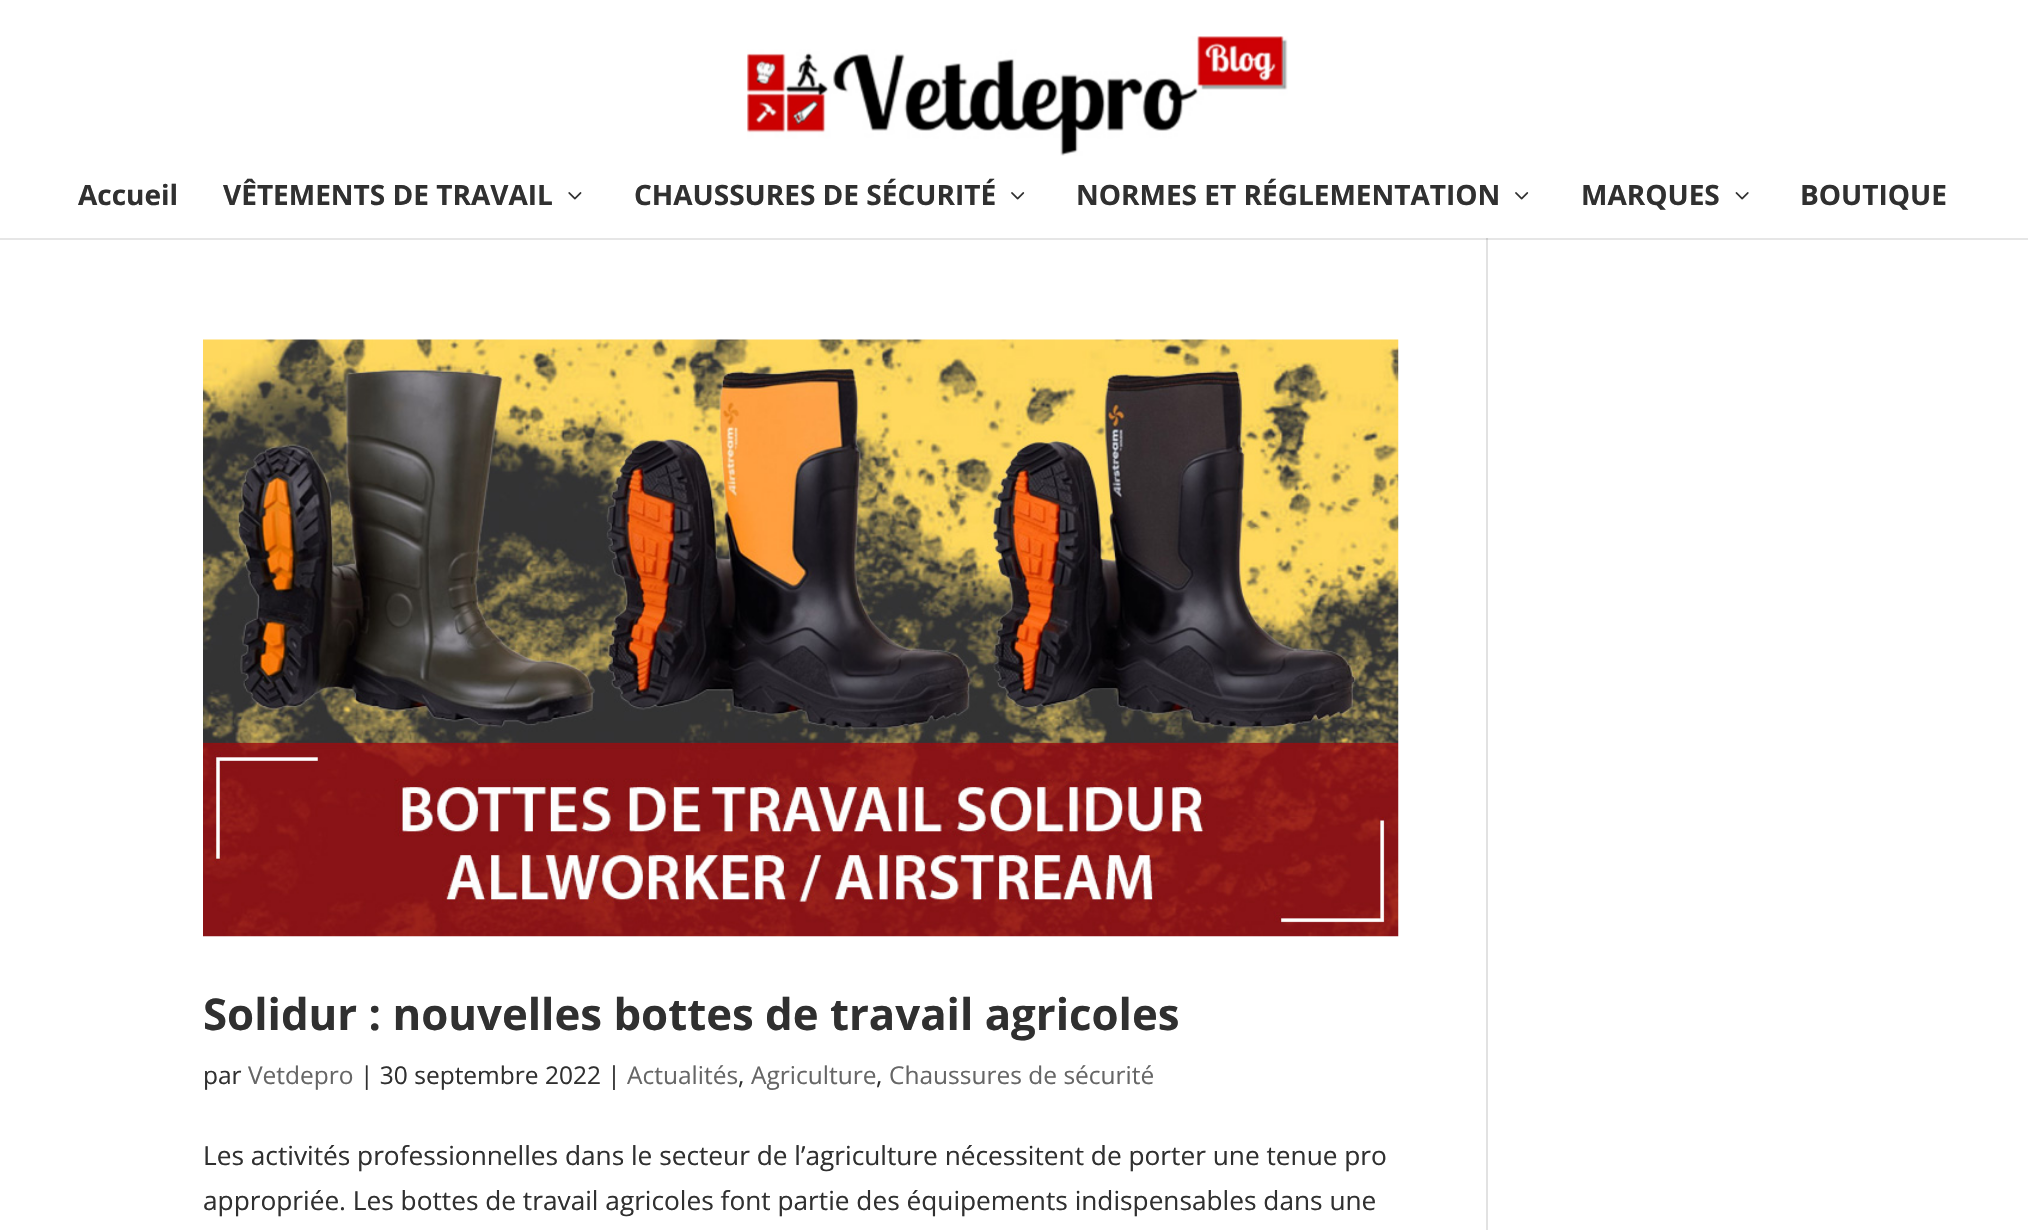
void draw(SkCanvas* canvas) {
    SkPaint paint;
    paint.setAntiAlias(true);
    auto face = [&](const char* family, int weight, float size, bool italic = false) {
        SkFontStyle style(weight, SkFontStyle::kNormal_Width,
            italic ? SkFontStyle::kItalic_Slant : SkFontStyle::kUpright_Slant);
        SkFont result(fontMgr->matchFamilyStyle(family, style), size);
        result.setSubpixel(true);
        return result;
    };
    auto write = [&](const char* s, float x, float y, const SkFont& font, SkColor color) {
        SkPaint ink(SkColor4f::FromColor(color));
        ink.setAntiAlias(true);
        canvas->drawString(s, x, y, font, ink);
    };
    auto block = [&](float x, float y, float w, float h, SkColor color) {
        SkPaint ink(SkColor4f::FromColor(color));
        ink.setAntiAlias(true);
        canvas->drawRect(SkRect::MakeXYWH(x, y, w, h), ink);
    };
    auto paste = [&](const char* path, float x, float y, float w, float h) {
        auto image = SkImages::DeferredFromEncodedData(SkData::MakeFromFileName(path));
        canvas->drawImageRect(image, SkRect::MakeXYWH(x, y, w, h), SkSamplingOptions());
    };
    canvas->clear(SK_ColorWHITE);
    block(0, 238, 2028, 2, SkColorSetRGB(230, 230, 230));
    paste("pic1.png", 747, 36, 541, 120);
    auto kFont1 = face("Open Sans", 700, 28);
    write("Accueil", 78, 205, kFont1, SkColorSetRGB(48, 48, 48));
    write("VÊTEMENTS DE TRAVAIL", 223, 205, kFont1, SkColorSetRGB(48, 48, 48));
    paste("pic2.png", 568, 192, 14, 8);
    write("CHAUSSURES DE SÉCURITÉ", 634, 205, kFont1, SkColorSetRGB(48, 48, 48));
    paste("pic3.png", 1011, 192, 14, 8);
    write("NORMES ET RÉGLEMENTATION", 1076, 205, kFont1, SkColorSetRGB(48, 48, 48));
    paste("pic3.png", 1515, 192, 14, 8);
    write("MARQUES", 1581, 205, kFont1, SkColorSetRGB(48, 48, 48));
    paste("pic4.png", 1735, 192, 14, 8);
    write("BOUTIQUE", 1800, 205, kFont1, SkColorSetRGB(48, 48, 48));
    paste("pic5.png", 203, 339, 1196, 598);
    auto kFont2 = face("Open Sans", 700, 43.75f);
    write("Solidur : nouvelles bottes de travail agricoles", 203, 1030, kFont2, SkColorSetRGB(48, 48, 48));
    auto kFont3 = face("Open Sans", 400, 24.5f);
    write("par", 203, 1084, kFont3, SkColorSetRGB(48, 48, 48));
    write("Vetdepro", 248, 1084, kFont3, SkColorSetRGB(102, 102, 102));
    write("| 30 septembre 2022 |", 360, 1084, kFont3, SkColorSetRGB(48, 48, 48));
    write("Actualités", 627, 1084, kFont3, SkColorSetRGB(102, 102, 102));
    write(",", 738, 1084, kFont3, SkColorSetRGB(48, 48, 48));
    write("Agriculture", 751, 1084, kFont3, SkColorSetRGB(102, 102, 102));
    write(",", 876, 1084, kFont3, SkColorSetRGB(48, 48, 48));
    write("Chaussures de sécurité", 889, 1084, kFont3, SkColorSetRGB(102, 102, 102));
    auto kFont4 = face("Open Sans", 400, 26.25f);
    write("Les activités professionnelles dans le secteur de l’agriculture nécessitent de porter une tenue pro", 203, 1165, kFont4, SkColorSetRGB(48, 48, 48));
    write("appropriée. Les bottes de travail agricoles font partie des équipements indispensables dans une", 203, 1210, kFont4, SkColorSetRGB(48, 48, 48));
    block(1486, 238, 2, 992, SkColorSetRGB(226, 226, 226));
    block(1486, 238, 2, 2, SkColorSetRGB(203, 203, 203));
}
